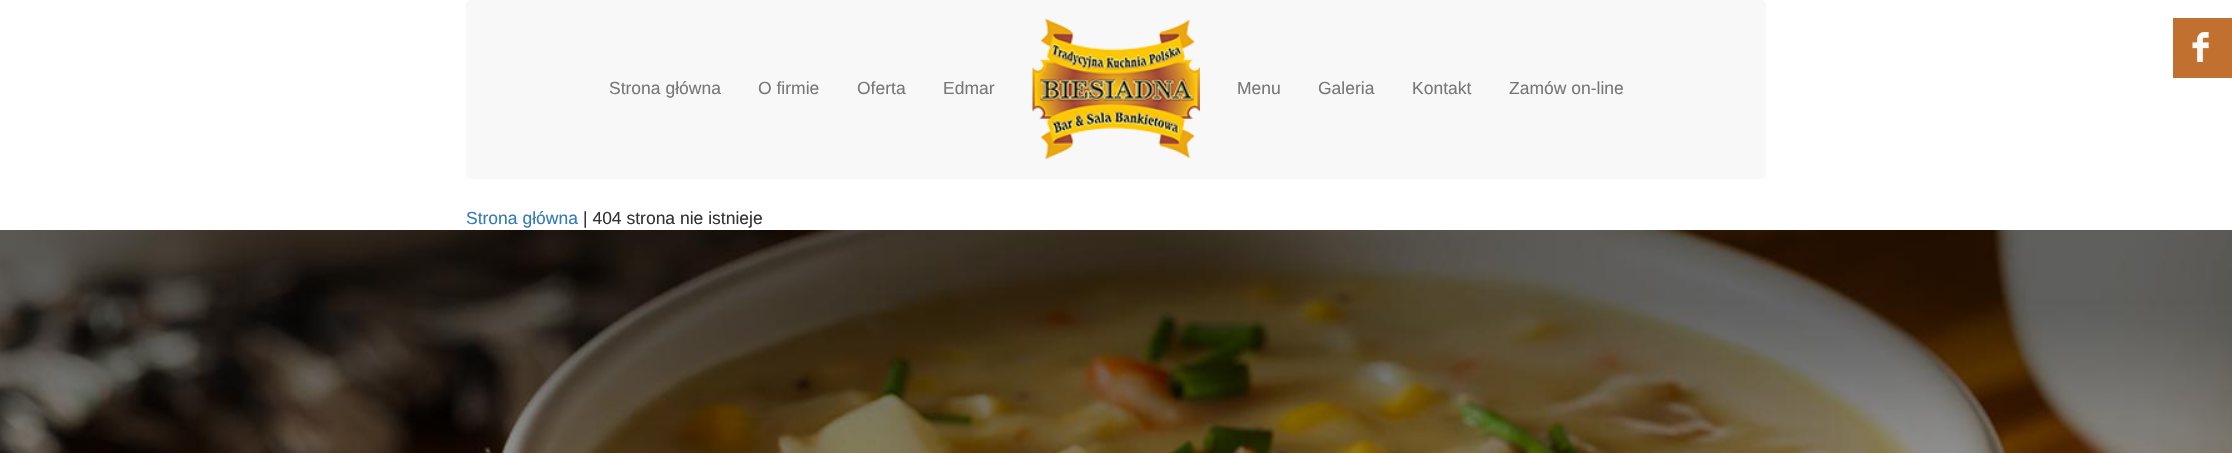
void draw(SkCanvas* canvas) {
    SkPaint paint;
    paint.setAntiAlias(true);
    auto face = [&](const char* family, int weight, float size, bool italic = false) {
        SkFontStyle style(weight, SkFontStyle::kNormal_Width,
            italic ? SkFontStyle::kItalic_Slant : SkFontStyle::kUpright_Slant);
        SkFont result(fontMgr->matchFamilyStyle(family, style), size);
        result.setSubpixel(true);
        return result;
    };
    auto write = [&](const char* s, float x, float y, const SkFont& font, SkColor color) {
        SkPaint ink(SkColor4f::FromColor(color));
        ink.setAntiAlias(true);
        canvas->drawString(s, x, y, font, ink);
    };
    auto block = [&](float x, float y, float w, float h, SkColor color) {
        SkPaint ink(SkColor4f::FromColor(color));
        ink.setAntiAlias(true);
        canvas->drawRect(SkRect::MakeXYWH(x, y, w, h), ink);
    };
    auto card = [&](float x, float y, float w, float h, float radius, SkColor color) {
        SkPaint ink(SkColor4f::FromColor(color));
        ink.setAntiAlias(true);
        canvas->drawRoundRect(SkRect::MakeXYWH(x, y, w, h), radius, radius, ink);
    };
    auto paste = [&](const char* path, float x, float y, float w, float h) {
        auto image = SkImages::DeferredFromEncodedData(SkData::MakeFromFileName(path));
        canvas->drawImageRect(image, SkRect::MakeXYWH(x, y, w, h), SkSamplingOptions());
    };
    canvas->clear(SK_ColorWHITE);
    block(2173, 18, 59, 60, SkColorSetRGB(193, 112, 47));
    paste("pic1.png", 2192, 32, 17, 30);
    card(466, 0, 1300, 179, 5, SkColorSetRGB(248, 248, 248));
    auto kFont1 = face("Liberation Sans", 400, 17.5f);
    write("Strona główna", 609, 94, kFont1, SkColorSetRGB(119, 119, 119));
    write("O firmie", 758, 94, kFont1, SkColorSetRGB(119, 119, 119));
    write("Oferta", 857, 94, kFont1, SkColorSetRGB(119, 119, 119));
    write("Edmar", 943, 94, kFont1, SkColorSetRGB(119, 119, 119));
    paste("pic2.png", 1032, 18, 168, 142);
    write("Menu", 1237, 94, kFont1, SkColorSetRGB(119, 119, 119));
    write("Galeria", 1318, 94, kFont1, SkColorSetRGB(119, 119, 119));
    write("Kontakt", 1412, 94, kFont1, SkColorSetRGB(119, 119, 119));
    write("Zamów on-line", 1509, 94, kFont1, SkColorSetRGB(119, 119, 119));
    write("Strona główna", 466, 224, kFont1, SkColorSetRGB(51, 122, 183));
    write("| 404 strona nie istnieje", 583, 224, kFont1, SkColorSetRGB(51, 51, 51));
    paste("pic3.png", 0, 230, 2232, 223);
}
